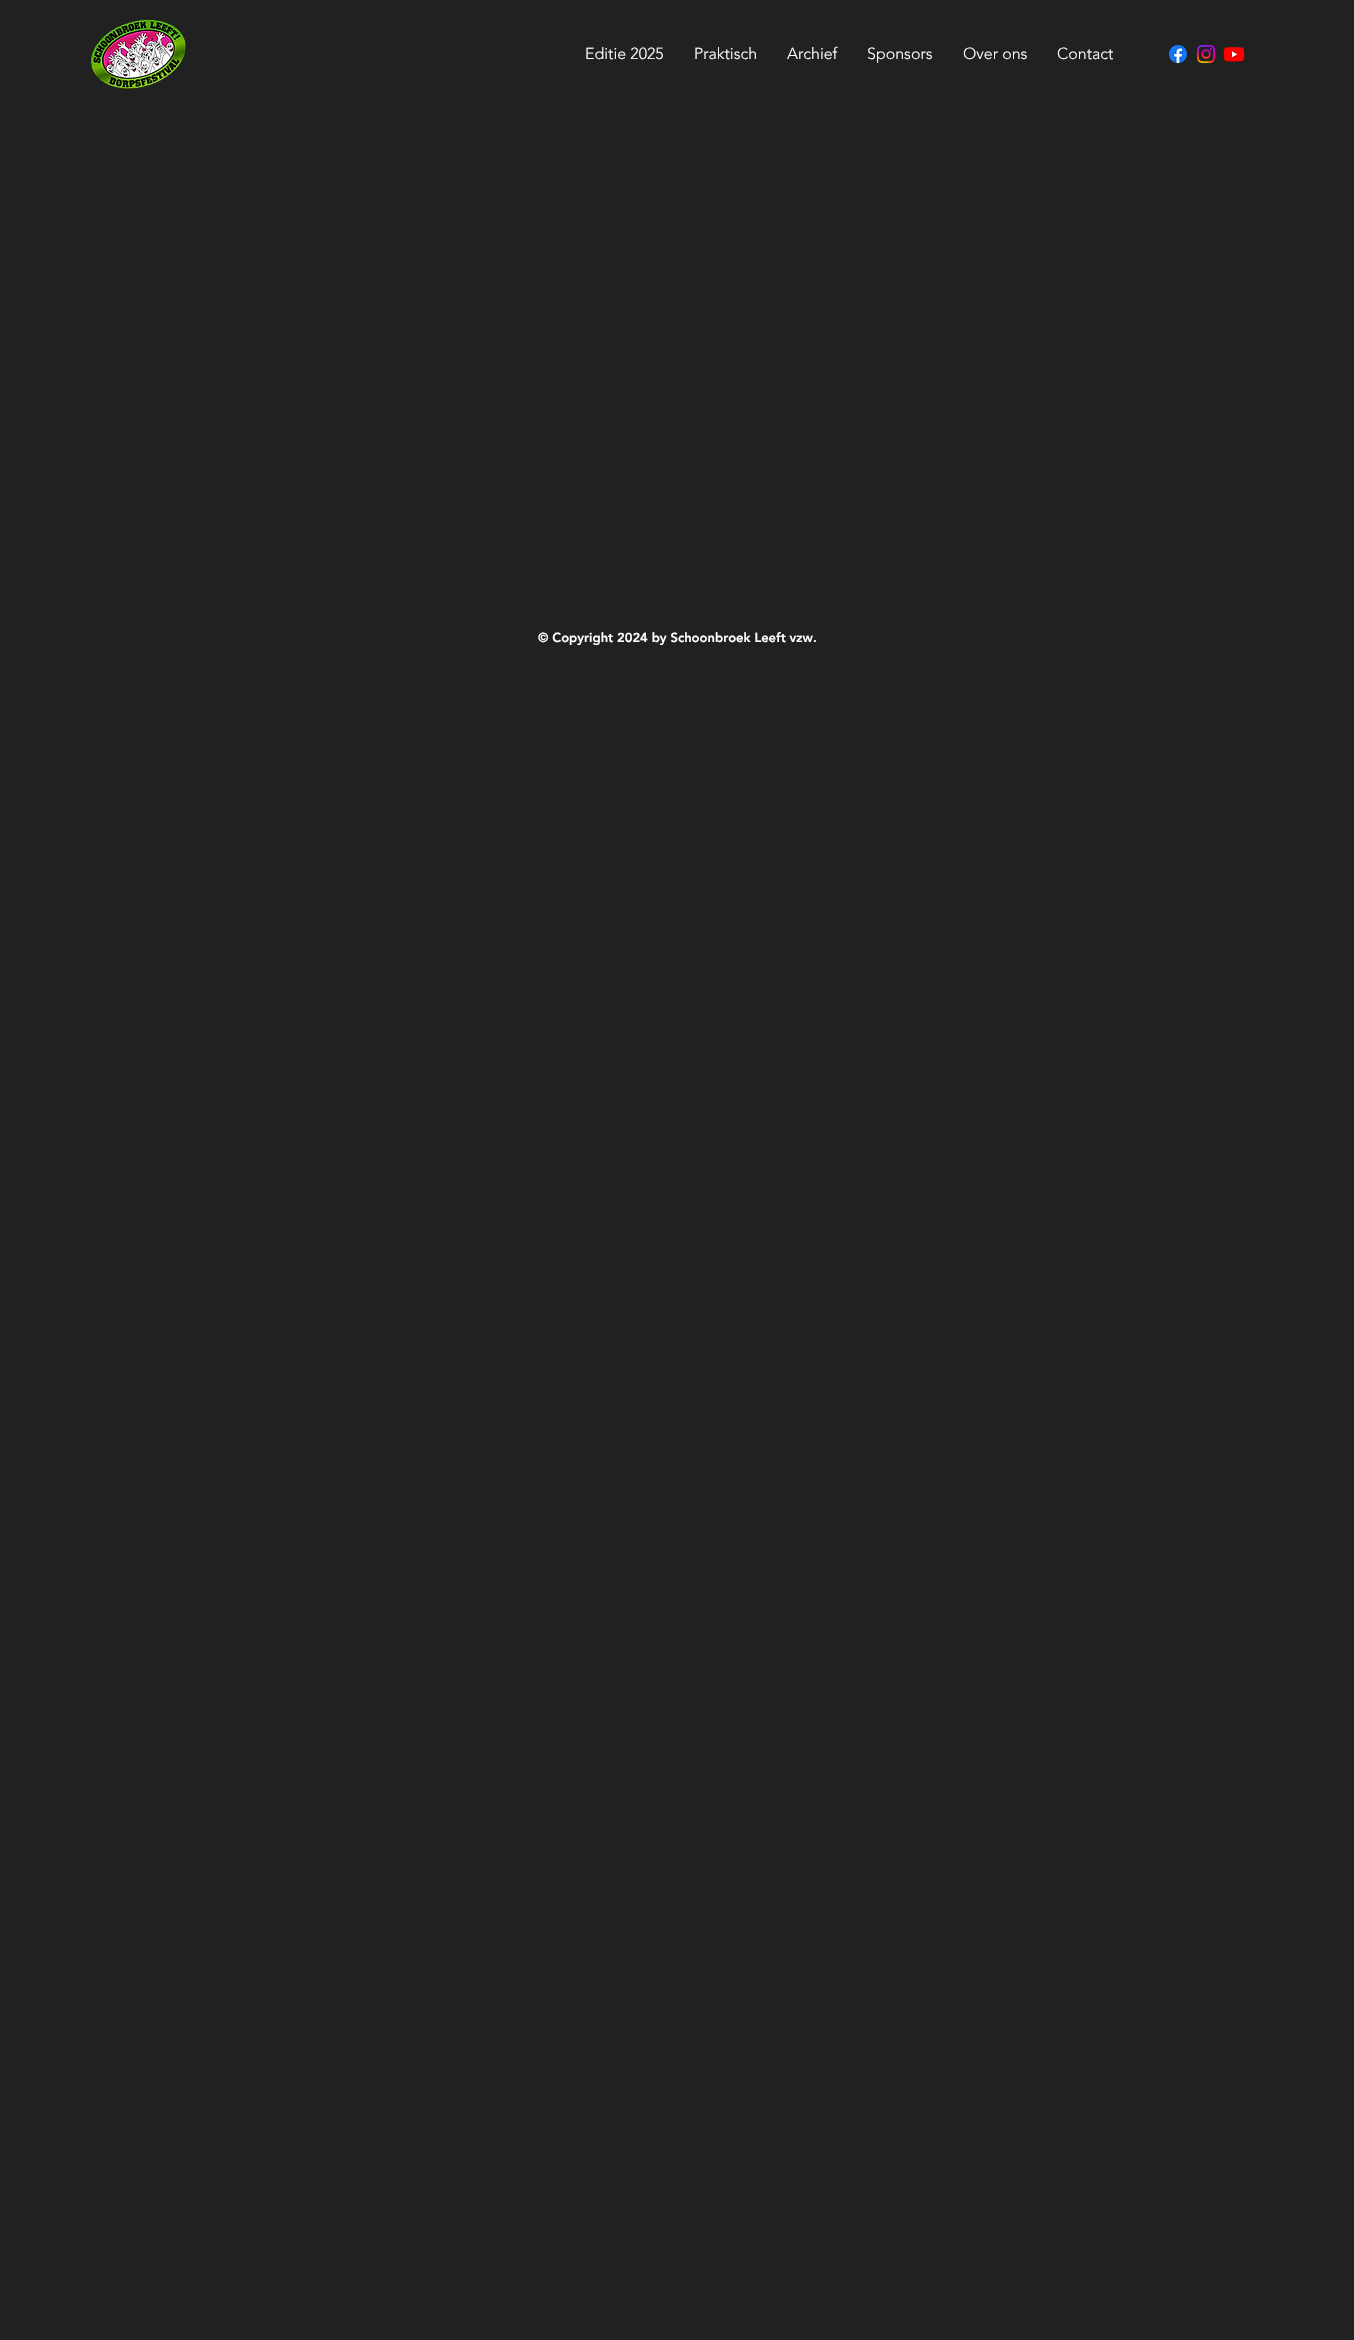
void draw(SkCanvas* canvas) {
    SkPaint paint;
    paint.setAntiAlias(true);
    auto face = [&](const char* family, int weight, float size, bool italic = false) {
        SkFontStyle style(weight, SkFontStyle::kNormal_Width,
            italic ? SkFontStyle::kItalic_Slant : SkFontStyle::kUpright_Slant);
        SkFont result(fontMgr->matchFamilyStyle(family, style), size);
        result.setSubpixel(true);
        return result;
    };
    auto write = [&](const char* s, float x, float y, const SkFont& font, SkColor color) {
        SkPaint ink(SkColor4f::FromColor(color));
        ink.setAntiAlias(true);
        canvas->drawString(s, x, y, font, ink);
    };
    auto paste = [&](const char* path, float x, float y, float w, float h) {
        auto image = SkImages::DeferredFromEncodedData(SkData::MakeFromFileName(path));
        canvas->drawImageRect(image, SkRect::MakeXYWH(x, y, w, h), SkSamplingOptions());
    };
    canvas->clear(SkColorSetRGB(33, 33, 33));
    paste("pic1.png", 91, 19, 95, 70);
    auto kFont1 = face("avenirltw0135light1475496", 300, 16);
    write("Editie 2025", 585, 59, kFont1, SK_ColorWHITE);
    write("Praktisch", 694, 59, kFont1, SK_ColorWHITE);
    write("Archief", 787, 59, kFont1, SK_ColorWHITE);
    write("Sponsors", 867, 59, kFont1, SK_ColorWHITE);
    write("Over ons", 963, 59, kFont1, SK_ColorWHITE);
    write("Contact", 1057, 59, kFont1, SK_ColorWHITE);
    paste("pic2.png", 1168, 44, 20, 20);
    paste("pic3.png", 1196, 44, 20, 20);
    paste("pic4.png", 1223, 47, 22, 15);
    auto kFont2 = face("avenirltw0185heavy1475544", 900, 13);
    write("© Copyright 2024 by Schoonbroek Leeft vzw.", 538, 642, kFont2, SK_ColorWHITE);
}
